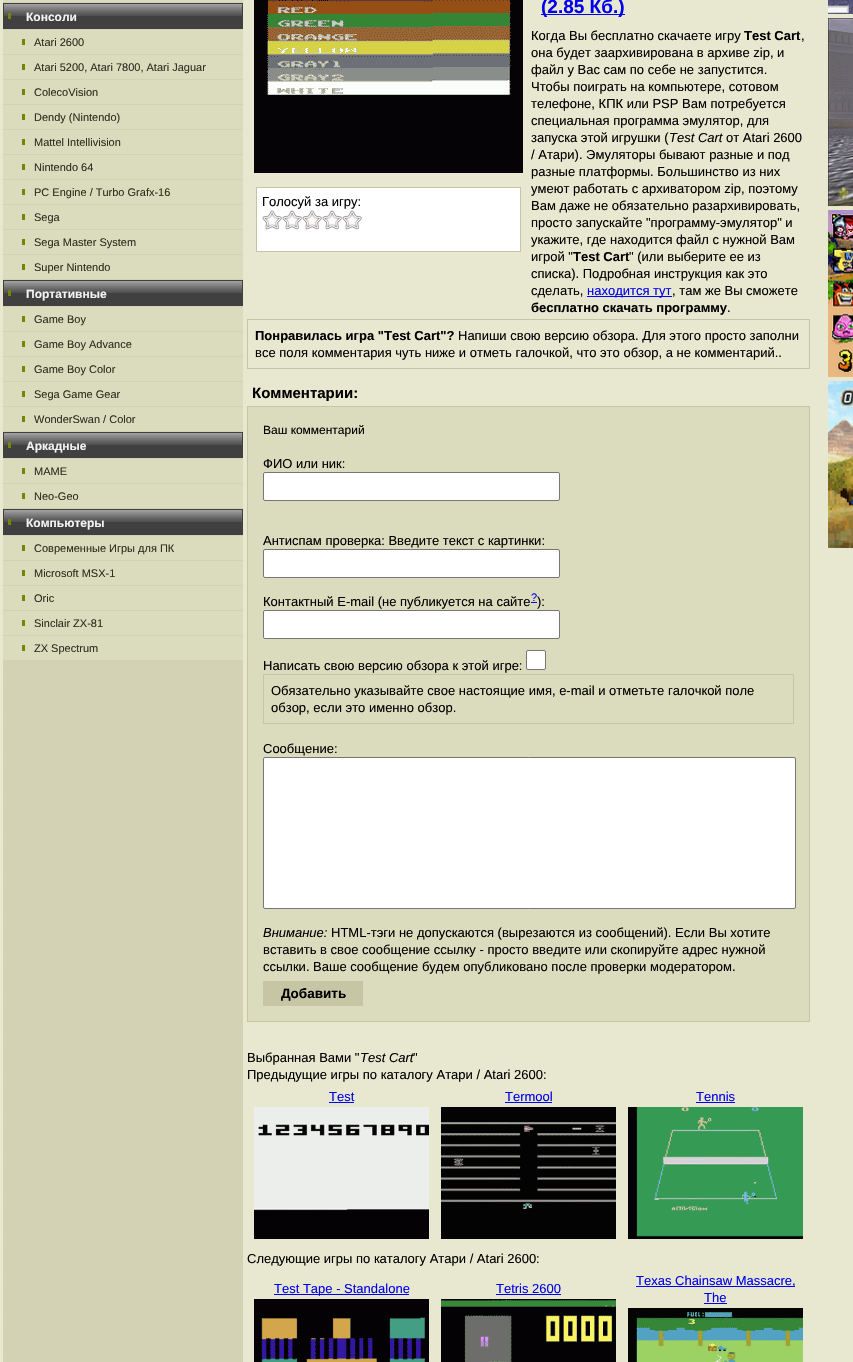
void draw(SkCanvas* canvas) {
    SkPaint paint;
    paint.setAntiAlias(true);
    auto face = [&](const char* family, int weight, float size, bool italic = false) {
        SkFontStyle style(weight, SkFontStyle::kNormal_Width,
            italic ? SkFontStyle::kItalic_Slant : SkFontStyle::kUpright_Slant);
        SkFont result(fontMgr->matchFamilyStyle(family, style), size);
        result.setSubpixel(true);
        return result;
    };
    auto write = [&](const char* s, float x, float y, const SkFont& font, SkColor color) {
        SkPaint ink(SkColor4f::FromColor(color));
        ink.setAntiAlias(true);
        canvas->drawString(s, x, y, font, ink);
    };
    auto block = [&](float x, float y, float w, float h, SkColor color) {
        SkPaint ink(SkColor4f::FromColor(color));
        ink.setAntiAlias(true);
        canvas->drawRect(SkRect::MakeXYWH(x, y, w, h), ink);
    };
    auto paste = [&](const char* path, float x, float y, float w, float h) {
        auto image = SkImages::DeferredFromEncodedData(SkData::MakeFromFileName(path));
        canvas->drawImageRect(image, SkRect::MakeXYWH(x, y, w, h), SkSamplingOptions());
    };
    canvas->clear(SkColorSetRGB(232, 232, 208));
    paste("pic1.png", 3, 2, 240, 1360);
    block(3, 0, 240, 2, SkColorSetRGB(219, 219, 190));
    paste("pic2.png", 4, 3, 238, 26);
    block(242, 3, 1, 26, SkColorSetRGB(64, 64, 64));
    block(3, 3, 1, 26, SkColorSetRGB(64, 64, 64));
    auto kFont1 = face("Liberation Sans", 700, 12);
    write("Консоли", 26, 21, kFont1, SkColorSetRGB(243, 243, 243));
    block(8, 13, 3, 6, SkColorSetRGB(114, 135, 1));
    block(3, 30, 240, 24, SkColorSetRGB(219, 219, 190));
    block(22, 39, 3, 6, SkColorSetRGB(114, 135, 1));
    auto kFont2 = face("Liberation Sans", 400, 11);
    write("Atari 2600", 34, 46, kFont2, SkColorSetRGB(47, 47, 32));
    block(3, 55, 240, 24, SkColorSetRGB(219, 219, 190));
    block(22, 64, 3, 6, SkColorSetRGB(114, 135, 1));
    write("Atari 5200, Atari 7800, Atari Jaguar", 34, 71, kFont2, SkColorSetRGB(47, 47, 32));
    block(3, 80, 240, 24, SkColorSetRGB(219, 219, 190));
    block(22, 89, 3, 6, SkColorSetRGB(114, 135, 1));
    write("ColecoVision", 34, 96, kFont2, SkColorSetRGB(47, 47, 32));
    block(3, 105, 240, 24, SkColorSetRGB(219, 219, 190));
    block(22, 114, 3, 6, SkColorSetRGB(114, 135, 1));
    write("Dendy (Nintendo)", 34, 121, kFont2, SkColorSetRGB(47, 47, 32));
    block(3, 130, 240, 24, SkColorSetRGB(219, 219, 190));
    block(22, 139, 3, 6, SkColorSetRGB(114, 135, 1));
    write("Mattel Intellivision", 34, 146, kFont2, SkColorSetRGB(47, 47, 32));
    block(3, 155, 240, 24, SkColorSetRGB(219, 219, 190));
    block(22, 164, 3, 6, SkColorSetRGB(114, 135, 1));
    write("Nintendo 64", 34, 171, kFont2, SkColorSetRGB(47, 47, 32));
    block(3, 180, 240, 24, SkColorSetRGB(219, 219, 190));
    block(22, 189, 3, 6, SkColorSetRGB(114, 135, 1));
    write("PC Engine / Turbo Grafx-16", 34, 196, kFont2, SkColorSetRGB(47, 47, 32));
    block(3, 205, 240, 24, SkColorSetRGB(219, 219, 190));
    block(22, 214, 3, 6, SkColorSetRGB(114, 135, 1));
    write("Sega", 34, 221, kFont2, SkColorSetRGB(47, 47, 32));
    block(3, 230, 240, 24, SkColorSetRGB(219, 219, 190));
    block(22, 239, 3, 6, SkColorSetRGB(114, 135, 1));
    write("Sega Master System", 34, 246, kFont2, SkColorSetRGB(47, 47, 32));
    block(3, 255, 240, 24, SkColorSetRGB(219, 219, 190));
    block(22, 264, 3, 6, SkColorSetRGB(114, 135, 1));
    write("Super Nintendo", 34, 271, kFont2, SkColorSetRGB(47, 47, 32));
    paste("pic2.png", 4, 280, 238, 26);
    block(242, 280, 1, 26, SkColorSetRGB(64, 64, 64));
    block(3, 280, 1, 26, SkColorSetRGB(64, 64, 64));
    write("Портативные", 26, 298, kFont1, SkColorSetRGB(243, 243, 243));
    block(8, 290, 3, 6, SkColorSetRGB(114, 135, 1));
    block(3, 307, 240, 24, SkColorSetRGB(219, 219, 190));
    block(22, 316, 3, 6, SkColorSetRGB(114, 135, 1));
    write("Game Boy", 34, 323, kFont2, SkColorSetRGB(47, 47, 32));
    block(3, 332, 240, 24, SkColorSetRGB(219, 219, 190));
    block(22, 341, 3, 6, SkColorSetRGB(114, 135, 1));
    write("Game Boy Advance", 34, 348, kFont2, SkColorSetRGB(47, 47, 32));
    block(3, 357, 240, 24, SkColorSetRGB(219, 219, 190));
    block(22, 366, 3, 6, SkColorSetRGB(114, 135, 1));
    write("Game Boy Color", 34, 373, kFont2, SkColorSetRGB(47, 47, 32));
    block(3, 382, 240, 24, SkColorSetRGB(219, 219, 190));
    block(22, 391, 3, 6, SkColorSetRGB(114, 135, 1));
    write("Sega Game Gear", 34, 398, kFont2, SkColorSetRGB(47, 47, 32));
    block(3, 407, 240, 24, SkColorSetRGB(219, 219, 190));
    block(22, 416, 3, 6, SkColorSetRGB(114, 135, 1));
    write("WonderSwan / Color", 34, 423, kFont2, SkColorSetRGB(47, 47, 32));
    paste("pic2.png", 4, 432, 238, 26);
    block(242, 432, 1, 26, SkColorSetRGB(64, 64, 64));
    block(3, 432, 1, 26, SkColorSetRGB(64, 64, 64));
    write("Аркадные", 26, 450, kFont1, SkColorSetRGB(243, 243, 243));
    block(8, 442, 3, 6, SkColorSetRGB(114, 135, 1));
    block(3, 459, 240, 24, SkColorSetRGB(219, 219, 190));
    block(22, 468, 3, 6, SkColorSetRGB(114, 135, 1));
    write("MAME", 34, 475, kFont2, SkColorSetRGB(47, 47, 32));
    block(3, 484, 240, 24, SkColorSetRGB(219, 219, 190));
    block(22, 493, 3, 6, SkColorSetRGB(114, 135, 1));
    write("Neo-Geo", 34, 500, kFont2, SkColorSetRGB(47, 47, 32));
    paste("pic2.png", 4, 509, 238, 26);
    block(242, 509, 1, 26, SkColorSetRGB(64, 64, 64));
    block(3, 509, 1, 26, SkColorSetRGB(64, 64, 64));
    write("Компьютеры", 26, 527, kFont1, SkColorSetRGB(243, 243, 243));
    block(8, 519, 3, 6, SkColorSetRGB(114, 135, 1));
    block(3, 536, 240, 24, SkColorSetRGB(219, 219, 190));
    block(22, 545, 3, 6, SkColorSetRGB(114, 135, 1));
    write("Современные Игры для ПК", 34, 552, kFont2, SkColorSetRGB(47, 47, 32));
    block(3, 561, 240, 24, SkColorSetRGB(219, 219, 190));
    block(22, 570, 3, 6, SkColorSetRGB(114, 135, 1));
    write("Microsoft MSX-1", 34, 577, kFont2, SkColorSetRGB(47, 47, 32));
    block(3, 586, 240, 24, SkColorSetRGB(219, 219, 190));
    block(22, 595, 3, 6, SkColorSetRGB(114, 135, 1));
    write("Oric", 34, 602, kFont2, SkColorSetRGB(47, 47, 32));
    block(3, 611, 240, 24, SkColorSetRGB(219, 219, 190));
    block(22, 620, 3, 6, SkColorSetRGB(114, 135, 1));
    write("Sinclair ZX-81", 34, 627, kFont2, SkColorSetRGB(47, 47, 32));
    block(3, 636, 240, 24, SkColorSetRGB(219, 219, 190));
    block(22, 645, 3, 6, SkColorSetRGB(114, 135, 1));
    write("ZX Spectrum", 34, 652, kFont2, SkColorSetRGB(47, 47, 32));
    paste("pic3.png", 254, 0, 269, 173);
    paint.setColor(SK_ColorWHITE);
    canvas->drawRect(SkRect::MakeXYWH(256.5f, 187.5f, 264, 64), paint);
    paint.setStyle(SkPaint::kStroke_Style);
    paint.setStrokeWidth(1);
    paint.setColor(SkColorSetRGB(198, 198, 165));
    canvas->drawRect(SkRect::MakeXYWH(256.5f, 187.5f, 264, 64), paint);
    auto kFont3 = face("Liberation Sans", 400, 13);
    write("Голосуй за игру:", 262, 206, kFont3, SK_ColorBLACK);
    paste("pic4.png", 262, 210, 100, 20);
    block(541, 14, 84, 1, SkColorSetRGB(0, 0, 238));
    auto kFont4 = face("Liberation Sans", 700, 19);
    write("(2.85 Кб.)", 541, 13, kFont4, SkColorSetRGB(0, 0, 238));
    write("Когда Вы бесплатно скачаете игру", 531, 40, kFont3, SK_ColorBLACK);
    auto kFont5 = face("Liberation Sans", 700, 13);
    write("Test Cart", 744, 40, kFont5, SK_ColorBLACK);
    write(",", 801, 40, kFont3, SK_ColorBLACK);
    write("она будет заархивирована в архиве zip, и", 531, 57, kFont3, SK_ColorBLACK);
    write("файл у Вас сам по себе не запустится.", 531, 74, kFont3, SK_ColorBLACK);
    write("Чтобы поиграть на компьютере, сотовом", 531, 91, kFont3, SK_ColorBLACK);
    write("телефоне, КПК или PSP Вам потребуется", 531, 108, kFont3, SK_ColorBLACK);
    write("специальная программа эмулятор, для", 531, 125, kFont3, SK_ColorBLACK);
    write("запуска этой игрушки (", 531, 142, kFont3, SK_ColorBLACK);
    auto kFont6 = face("Liberation Sans", 400, 13, true);
    write("Test Cart", 669, 142, kFont6, SK_ColorBLACK);
    write("от Atari 2600", 726, 142, kFont3, SK_ColorBLACK);
    write("/ Атари). Эмуляторы бывают разные и под", 531, 159, kFont3, SK_ColorBLACK);
    write("разные платформы. Большинство из них", 531, 176, kFont3, SK_ColorBLACK);
    write("умеют работать с архиватором zip, поэтому", 531, 193, kFont3, SK_ColorBLACK);
    write("Вам даже не обязательно разархивировать,", 531, 210, kFont3, SK_ColorBLACK);
    write("просто запускайте \"программу-эмулятор\" и", 531, 227, kFont3, SK_ColorBLACK);
    write("укажите, где находится файл с нужной Вам", 531, 244, kFont3, SK_ColorBLACK);
    write("игрой \"", 531, 261, kFont3, SK_ColorBLACK);
    write("Test Cart", 573, 261, kFont5, SK_ColorBLACK);
    write("\" (или выберите ее из", 629, 261, kFont3, SK_ColorBLACK);
    write("списка). Подробная инструкция как это", 531, 278, kFont3, SK_ColorBLACK);
    write("сделать,", 531, 295, kFont3, SK_ColorBLACK);
    block(587, 296, 85, 1, SkColorSetRGB(0, 0, 238));
    write("находится тут", 587, 295, kFont3, SkColorSetRGB(0, 0, 238));
    write(", там же Вы сможете", 672, 295, kFont3, SK_ColorBLACK);
    write("бесплатно скачать программу", 531, 312, kFont5, SK_ColorBLACK);
    write(".", 727, 312, kFont3, SK_ColorBLACK);
    canvas->drawRect(SkRect::MakeXYWH(247.5f, 319.5f, 562, 49), paint);
    write("Понравилась игра \"Test Cart\"?", 255, 340, kFont5, SK_ColorBLACK);
    write("Напиши свою версию обзора. Для этого просто заполни", 458, 340, kFont3, SK_ColorBLACK);
    write("все поля комментария чуть ниже и отметь галочкой, что это обзор, а не комментарий..", 255, 357, kFont3, SK_ColorBLACK);
    auto kFont7 = face("Liberation Sans", 700, 15);
    write("Комментарии:", 252, 398, kFont7, SK_ColorBLACK);
    paint.setStyle(SkPaint::kFill_Style);
    paint.setColor(SkColorSetRGB(219, 219, 190));
    canvas->drawRect(SkRect::MakeXYWH(247.5f, 406.5f, 562, 615), paint);
    paint.setStyle(SkPaint::kStroke_Style);
    paint.setColor(SkColorSetRGB(198, 198, 165));
    canvas->drawRect(SkRect::MakeXYWH(247.5f, 406.5f, 562, 615), paint);
    auto kFont8 = face("Liberation Sans", 400, 12);
    write("Ваш комментарий", 263, 434, kFont8, SK_ColorBLACK);
    write("ФИО или ник:", 263, 468, kFont3, SK_ColorBLACK);
    paint.setStyle(SkPaint::kFill_Style);
    paint.setColor(SK_ColorWHITE);
    canvas->drawRoundRect(SkRect::MakeXYWH(263.5f, 472.5f, 296, 28), 1.5f, 1.5f, paint);
    paint.setStyle(SkPaint::kStroke_Style);
    paint.setColor(SkColorSetRGB(118, 118, 118));
    canvas->drawRoundRect(SkRect::MakeXYWH(263.5f, 472.5f, 296, 28), 1.5f, 1.5f, paint);
    write("Антиспам проверка: Введите текст с картинки:", 263, 545, kFont3, SK_ColorBLACK);
    paint.setStyle(SkPaint::kFill_Style);
    paint.setColor(SK_ColorWHITE);
    canvas->drawRoundRect(SkRect::MakeXYWH(263.5f, 549.5f, 296, 28), 1.5f, 1.5f, paint);
    paint.setStyle(SkPaint::kStroke_Style);
    paint.setColor(SkColorSetRGB(118, 118, 118));
    canvas->drawRoundRect(SkRect::MakeXYWH(263.5f, 549.5f, 296, 28), 1.5f, 1.5f, paint);
    write("Контактный E-mail (не публикуется на сайте", 263, 606, kFont3, SK_ColorBLACK);
    write("?", 531, 601, kFont2, SkColorSetRGB(0, 0, 238));
    block(531, 602, 6, 1, SkColorSetRGB(0, 0, 238));
    write("):", 537, 606, kFont3, SK_ColorBLACK);
    paint.setStyle(SkPaint::kFill_Style);
    paint.setColor(SK_ColorWHITE);
    canvas->drawRoundRect(SkRect::MakeXYWH(263.5f, 610.5f, 296, 28), 1.5f, 1.5f, paint);
    paint.setStyle(SkPaint::kStroke_Style);
    paint.setColor(SkColorSetRGB(118, 118, 118));
    canvas->drawRoundRect(SkRect::MakeXYWH(263.5f, 610.5f, 296, 28), 1.5f, 1.5f, paint);
    write("Написать свою версию обзора к этой игре:", 263, 670, kFont3, SK_ColorBLACK);
    paint.setStyle(SkPaint::kFill_Style);
    paint.setColor(SK_ColorWHITE);
    canvas->drawRoundRect(SkRect::MakeXYWH(526.5f, 650.5f, 19, 19), 1.5f, 1.5f, paint);
    paint.setStyle(SkPaint::kStroke_Style);
    paint.setColor(SkColorSetRGB(118, 118, 118));
    canvas->drawRoundRect(SkRect::MakeXYWH(526.5f, 650.5f, 19, 19), 1.5f, 1.5f, paint);
    paint.setColor(SkColorSetRGB(198, 198, 165));
    canvas->drawRect(SkRect::MakeXYWH(263.5f, 674.5f, 530, 49), paint);
    write("Обязательно указывайте свое настоящие имя, e-mail и отметьте галочкой поле", 271, 695, kFont3, SK_ColorBLACK);
    write("обзор, если это именно обзор.", 271, 712, kFont3, SK_ColorBLACK);
    write("Сообщение:", 263, 753, kFont3, SK_ColorBLACK);
    paint.setStyle(SkPaint::kFill_Style);
    paint.setColor(SK_ColorWHITE);
    canvas->drawRoundRect(SkRect::MakeXYWH(263.5f, 757.5f, 532, 151), 1.5f, 1.5f, paint);
    paint.setStyle(SkPaint::kStroke_Style);
    paint.setColor(SkColorSetRGB(118, 118, 118));
    canvas->drawRoundRect(SkRect::MakeXYWH(263.5f, 757.5f, 532, 151), 1.5f, 1.5f, paint);
    write("Внимание:", 263, 937, kFont6, SK_ColorBLACK);
    write("HTML-тэги не допускаются (вырезаются из сообщений). Если Вы хотите", 331, 937, kFont3, SK_ColorBLACK);
    write("вставить в свое сообщение ссылку - просто введите или скопируйте адрес нужной", 263, 954, kFont3, SK_ColorBLACK);
    write("ссылки. Ваше сообщение будем опубликовано после проверки модератором.", 263, 971, kFont3, SK_ColorBLACK);
    block(263, 981, 100, 25, SkColorSetRGB(198, 198, 165));
    auto kFont9 = face("Liberation Sans", 700, 13.5f);
    write("Добавить", 281, 998, kFont9, SK_ColorBLACK);
    write("Выбранная Вами \"", 247, 1062, kFont3, SK_ColorBLACK);
    write("Test Cart", 360, 1062, kFont6, SK_ColorBLACK);
    write("\"", 413, 1062, kFont3, SK_ColorBLACK);
    write("Предыдущие игры по каталогу Атари / Atari 2600:", 247, 1079, kFont3, SK_ColorBLACK);
    write("Test", 329, 1101, kFont3, SkColorSetRGB(0, 0, 238));
    block(329, 1102, 25, 1, SkColorSetRGB(0, 0, 238));
    paste("pic5.png", 254, 1107, 175, 132);
    write("Termool", 505, 1101, kFont3, SkColorSetRGB(0, 0, 238));
    block(505, 1102, 47, 1, SkColorSetRGB(0, 0, 238));
    paste("pic6.png", 441, 1107, 175, 132);
    write("Tennis", 696, 1101, kFont3, SkColorSetRGB(0, 0, 238));
    block(696, 1102, 39, 1, SkColorSetRGB(0, 0, 238));
    paste("pic7.png", 628, 1107, 175, 132);
    write("Следующие игры по каталогу Атари / Atari 2600:", 247, 1263, kFont3, SK_ColorBLACK);
    block(274, 1294, 135, 1, SkColorSetRGB(0, 0, 238));
    write("Test Tape - Standalone", 274, 1293, kFont3, SkColorSetRGB(0, 0, 238));
    paste("pic8.png", 254, 1299, 175, 63);
    write("Tetris 2600", 496, 1293, kFont3, SkColorSetRGB(0, 0, 238));
    block(496, 1294, 65, 1, SkColorSetRGB(0, 0, 238));
    paste("pic9.png", 441, 1299, 175, 63);
    block(636, 1286, 159, 1, SkColorSetRGB(0, 0, 238));
    write("Texas Chainsaw Massacre,", 636, 1285, kFont3, SkColorSetRGB(0, 0, 238));
    write("The", 704, 1302, kFont3, SkColorSetRGB(0, 0, 238));
    block(704, 1303, 23, 1, SkColorSetRGB(0, 0, 238));
    paste("pic10.png", 628, 1308, 175, 54);
    paste("pic11.png", 828, 0, 25, 14);
    paste("pic12.png", 828, 18, 25, 188);
    paste("pic13.png", 828, 210, 25, 167);
    paste("pic14.png", 828, 381, 25, 167);
}
